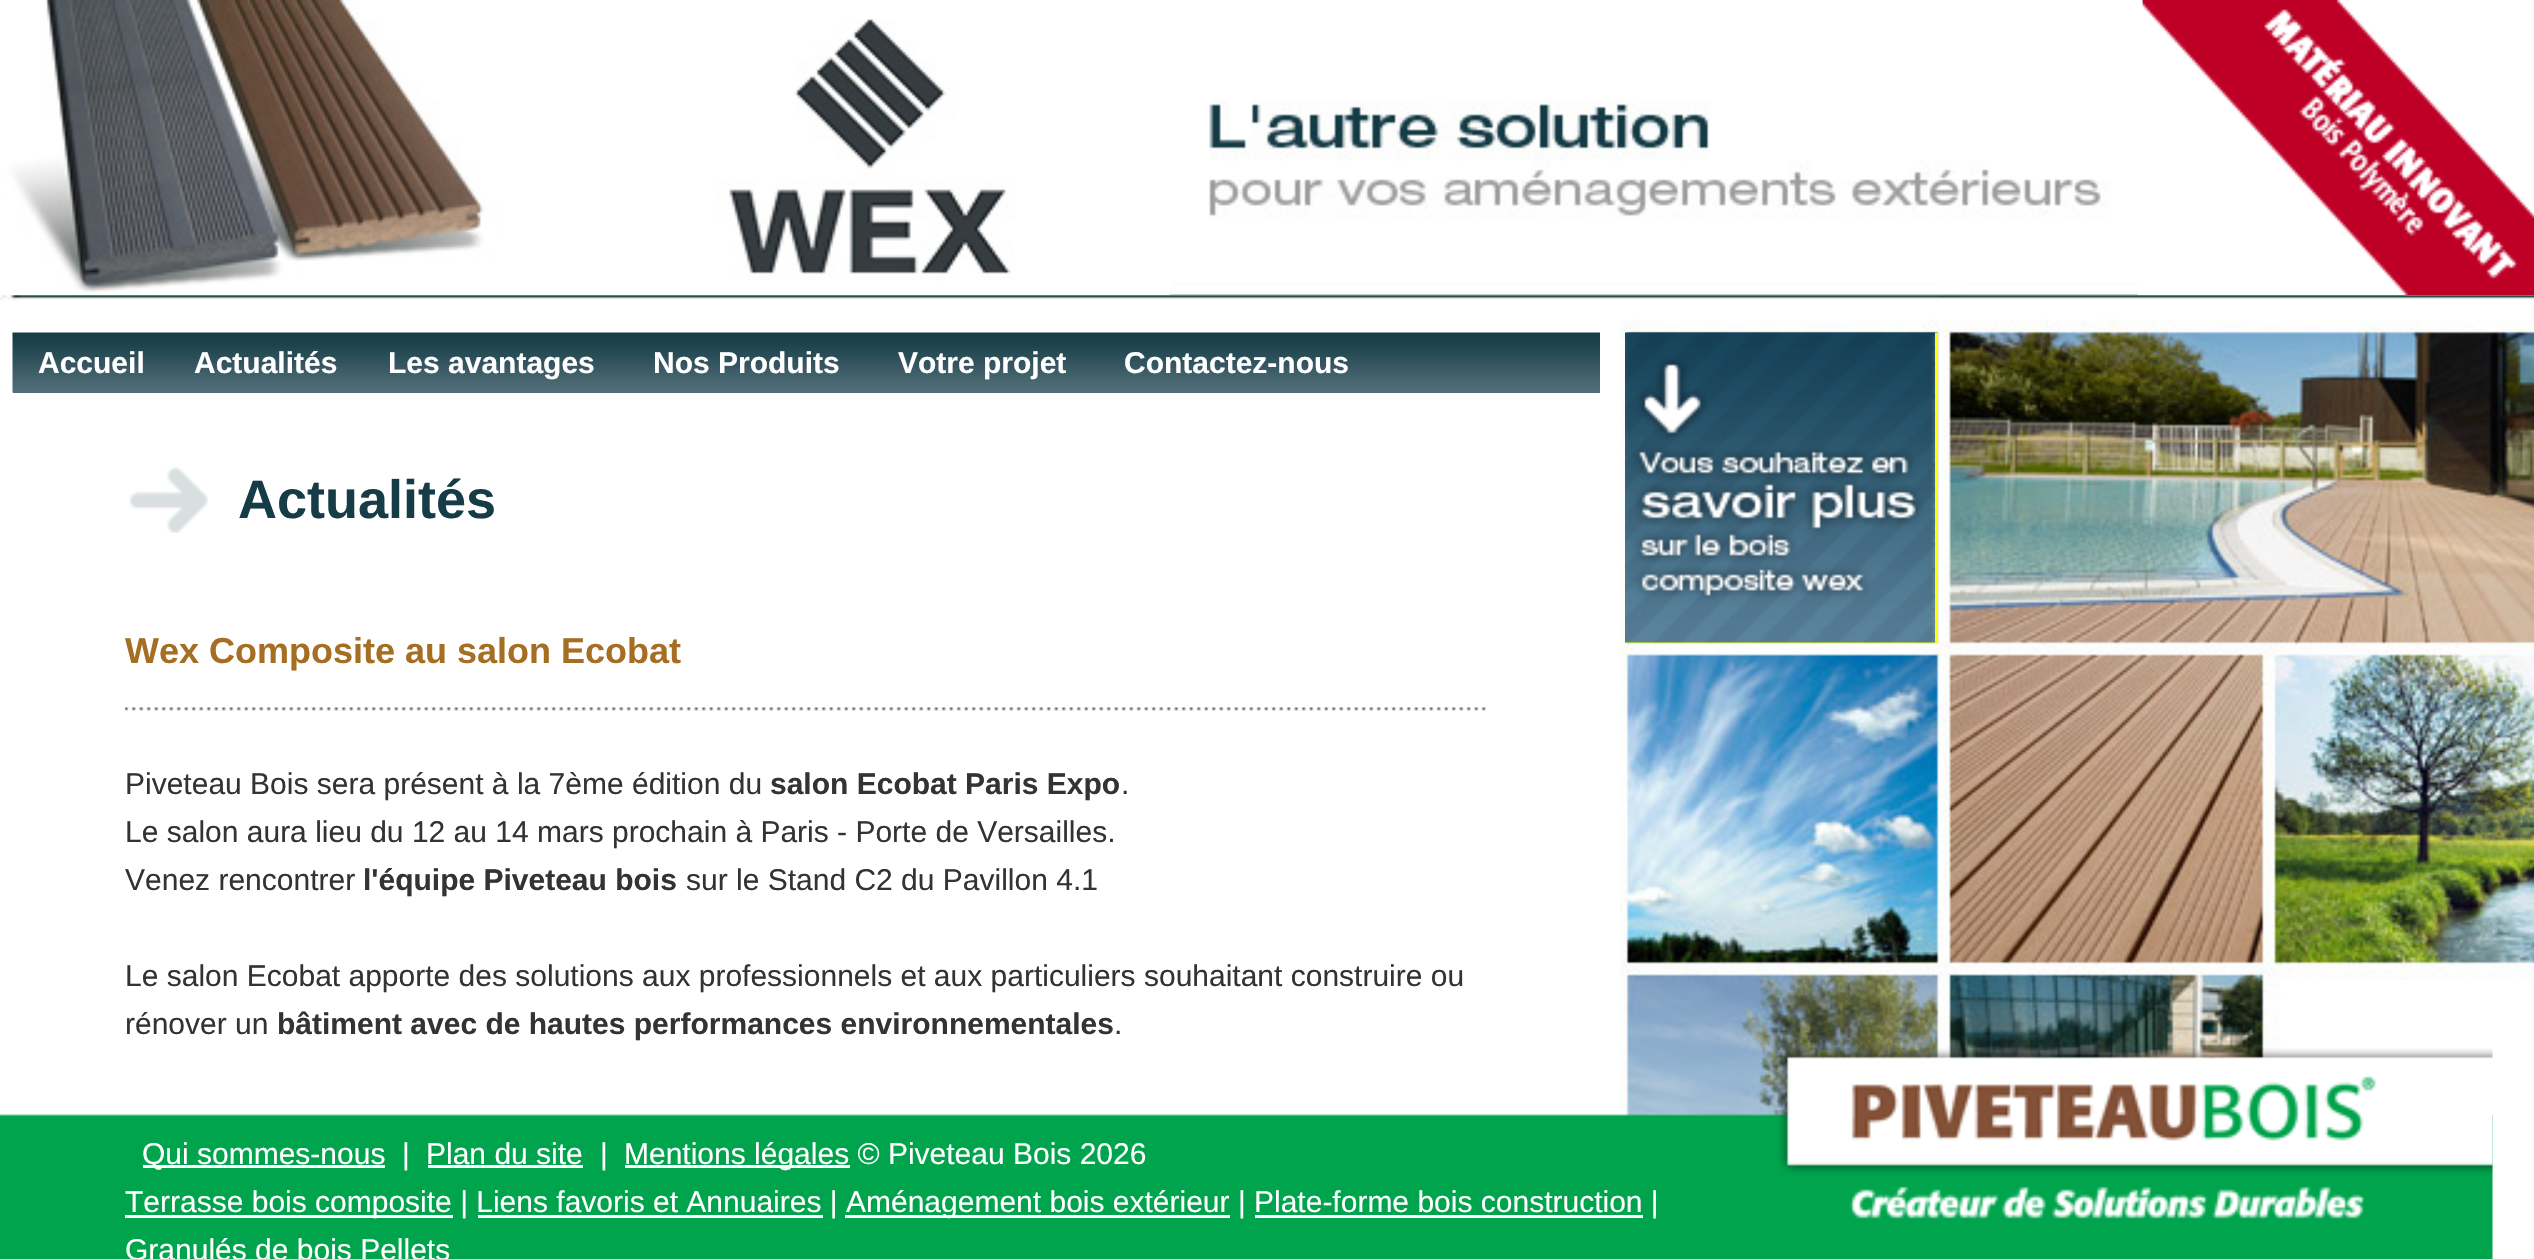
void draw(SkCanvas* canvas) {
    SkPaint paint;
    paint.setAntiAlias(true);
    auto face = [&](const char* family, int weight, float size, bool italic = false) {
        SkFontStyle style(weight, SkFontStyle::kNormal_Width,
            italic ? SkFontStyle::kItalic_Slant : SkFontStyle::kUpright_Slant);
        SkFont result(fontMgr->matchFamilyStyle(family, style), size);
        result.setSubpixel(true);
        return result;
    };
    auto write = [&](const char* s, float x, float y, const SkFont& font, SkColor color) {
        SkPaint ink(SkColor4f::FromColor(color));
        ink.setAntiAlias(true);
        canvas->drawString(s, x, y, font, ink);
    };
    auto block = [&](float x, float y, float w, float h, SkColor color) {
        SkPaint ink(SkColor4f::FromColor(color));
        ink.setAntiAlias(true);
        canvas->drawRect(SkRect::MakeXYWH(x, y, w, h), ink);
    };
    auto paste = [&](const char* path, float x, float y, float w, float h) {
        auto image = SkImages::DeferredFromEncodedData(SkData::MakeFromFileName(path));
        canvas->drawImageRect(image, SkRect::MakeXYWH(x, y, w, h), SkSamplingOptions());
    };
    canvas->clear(SK_ColorWHITE);
    paste("pic1.png", 0, 281, 2534, 978);
    paste("pic2.png", 2137, 0, 397, 295);
    paste("pic3.png", 0, 0, 635, 295);
    paste("pic4.png", 635, 19, 535, 276);
    paste("pic5.png", 1209, 0, 934, 219);
    block(13, 392, 1587, 1, SkColorSetRGB(83, 112, 120));
    paste("pic6.png", 12, 332, 1588, 61);
    auto kFont1 = face("Liberation Sans", 700, 30);
    write("Accueil", 38, 373, kFont1, SK_ColorWHITE);
    write("Actualités", 194, 373, kFont1, SK_ColorWHITE);
    write("Les avantages", 388, 373, kFont1, SK_ColorWHITE);
    write("Nos Produits", 653, 373, kFont1, SK_ColorWHITE);
    write("Votre projet", 898, 373, kFont1, SK_ColorWHITE);
    write("Contactez-nous", 1124, 373, kFont1, SK_ColorWHITE);
    block(1625, 333, 313, 310, SkColorSetRGB(255, 255, 0));
    paste("pic7.png", 1625, 332, 310, 311);
    paste("pic8.png", 129, 467, 79, 66);
    auto kFont2 = face("Liberation Sans", 700, 54);
    write("Actualités", 238, 518, kFont2, SkColorSetRGB(22, 60, 71));
    paste("pic9.png", 125, 707, 1361, 4);
    auto kFont3 = face("Liberation Sans", 700, 36);
    write("Wex Composite au salon Ecobat", 125, 663, kFont3, SkColorSetRGB(165, 110, 35));
    auto kFont4 = face("Liberation Sans", 400, 30);
    write("Piveteau Bois sera présent à la 7ème édition du", 125, 794, kFont4, SkColorSetRGB(51, 51, 51));
    write("salon Ecobat Paris Expo", 770, 794, kFont1, SkColorSetRGB(51, 51, 51));
    write(".", 1121, 794, kFont4, SkColorSetRGB(51, 51, 51));
    write("Le salon aura lieu du 12 au 14 mars prochain à Paris - Porte de Versailles.", 125, 842, kFont4, SkColorSetRGB(51, 51, 51));
    write("Venez rencontrer", 125, 890, kFont4, SkColorSetRGB(51, 51, 51));
    write("l'équipe Piveteau bois", 363, 890, kFont1, SkColorSetRGB(51, 51, 51));
    write("sur le Stand C2 du Pavillon 4.1", 686, 890, kFont4, SkColorSetRGB(51, 51, 51));
    write("Le salon Ecobat apporte des solutions aux professionnels et aux particuliers souhaitant construire ou", 125, 986, kFont4, SkColorSetRGB(51, 51, 51));
    write("rénover un", 125, 1034, kFont4, SkColorSetRGB(51, 51, 51));
    write("bâtiment avec de hautes performances environnementales", 277, 1034, kFont1, SkColorSetRGB(51, 51, 51));
    write(".", 1114, 1034, kFont4, SkColorSetRGB(51, 51, 51));
    paste("pic10.png", 0, 1114, 2493, 145);
    block(143, 1165, 242, 3, SK_ColorWHITE);
    write("Qui sommes-nous", 142, 1164, kFont4, SK_ColorWHITE);
    write("|", 402, 1164, kFont4, SK_ColorWHITE);
    write("Plan du site", 426, 1164, kFont4, SK_ColorWHITE);
    block(428, 1165, 155, 3, SK_ColorWHITE);
    write("|", 600, 1164, kFont4, SK_ColorWHITE);
    block(625, 1165, 225, 3, SK_ColorWHITE);
    write("Mentions légales © Piveteau Bois 2026", 624, 1164, kFont4, SK_ColorWHITE);
    block(125, 1215, 328, 3, SK_ColorWHITE);
    write("Terrasse bois composite | Liens favoris et Annuaires |", 125, 1212, kFont4, SK_ColorWHITE);
    block(845, 1215, 385, 3, SK_ColorWHITE);
    write("Aménagement bois extérieur | Plate-forme bois construction |", 846, 1212, kFont4, SK_ColorWHITE);
    block(478, 1215, 345, 3, SK_ColorWHITE);
    block(1255, 1215, 388, 3, SK_ColorWHITE);
    write("Granulés de bois Pellets", 125, 1260, kFont4, SK_ColorWHITE);
    paste("pic11.png", 1778, 1048, 715, 171);
}
